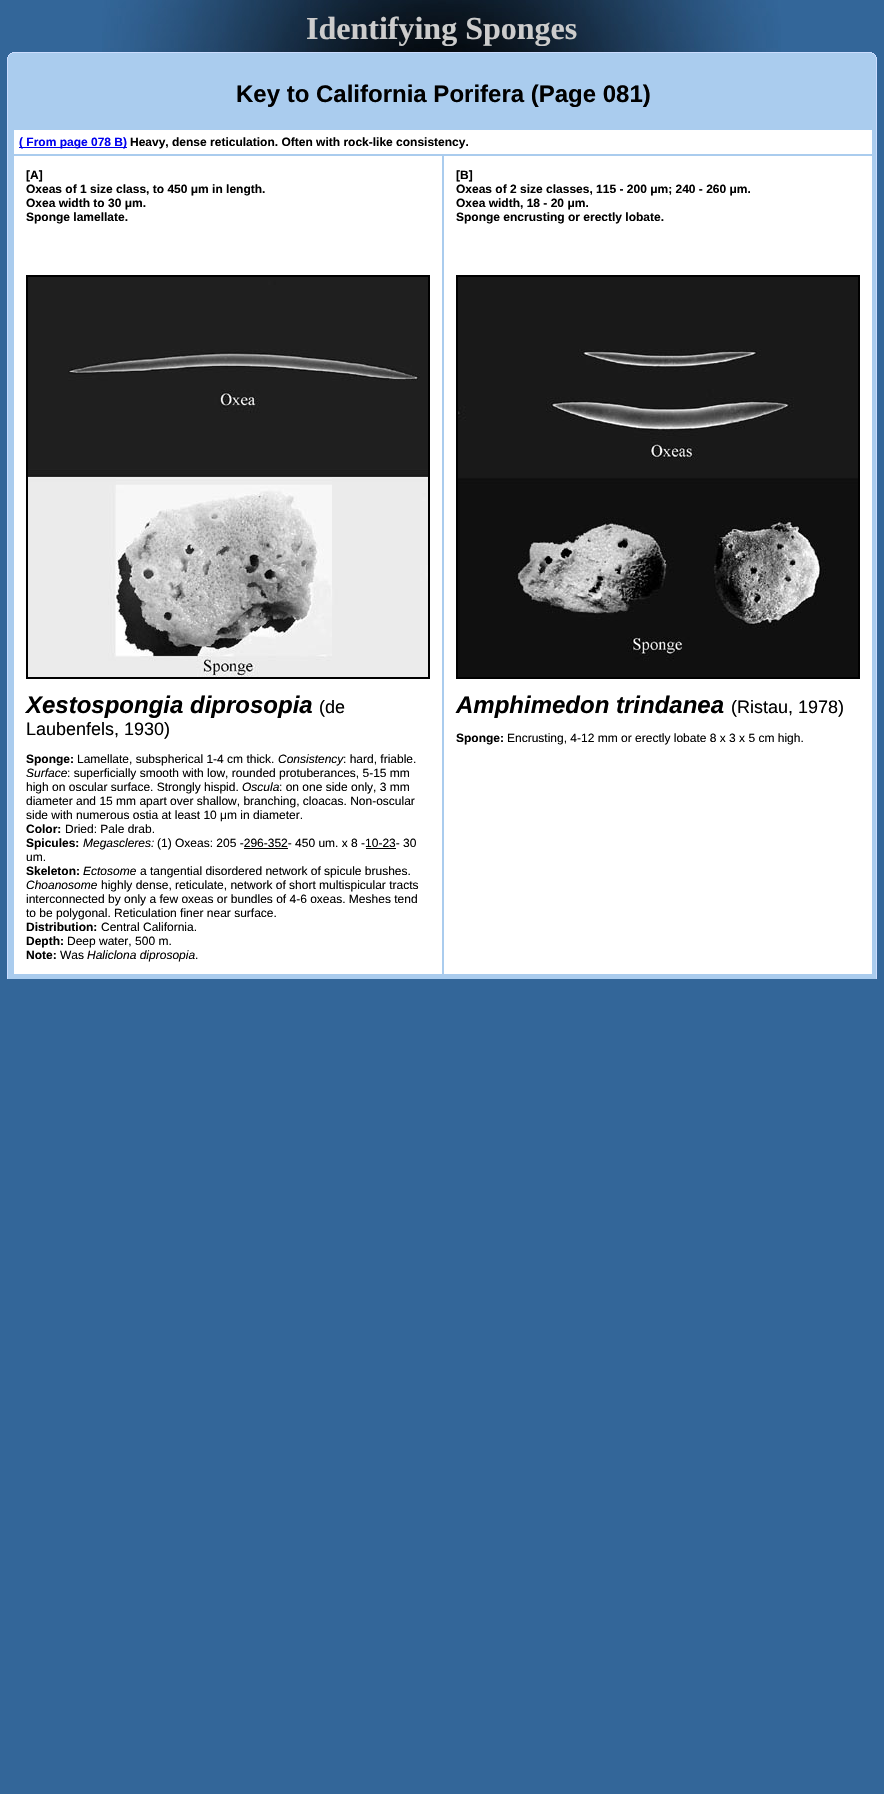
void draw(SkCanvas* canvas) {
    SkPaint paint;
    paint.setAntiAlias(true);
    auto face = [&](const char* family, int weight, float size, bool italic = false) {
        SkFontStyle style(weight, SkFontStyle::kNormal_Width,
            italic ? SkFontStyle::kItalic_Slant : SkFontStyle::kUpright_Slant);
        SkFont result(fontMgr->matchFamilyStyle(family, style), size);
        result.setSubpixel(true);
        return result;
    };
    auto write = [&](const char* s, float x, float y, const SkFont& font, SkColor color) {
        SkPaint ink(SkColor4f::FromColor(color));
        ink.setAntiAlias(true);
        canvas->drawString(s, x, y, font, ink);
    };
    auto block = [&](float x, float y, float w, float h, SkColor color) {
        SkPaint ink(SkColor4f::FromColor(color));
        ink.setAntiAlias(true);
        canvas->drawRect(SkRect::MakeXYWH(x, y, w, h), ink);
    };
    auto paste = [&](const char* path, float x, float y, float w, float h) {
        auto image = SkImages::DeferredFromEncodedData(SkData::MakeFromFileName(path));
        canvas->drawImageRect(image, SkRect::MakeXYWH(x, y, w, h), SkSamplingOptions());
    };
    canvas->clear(SkColorSetRGB(51, 102, 153));
    paste("pic1.png", 102, 0, 679, 52);
    auto kFont1 = face("Liberation Serif", 700, 32);
    write("Identifying Sponges", 306, 39, kFont1, SkColorSetRGB(204, 204, 204));
    block(12, 52, 860, 1, SkColorSetRGB(204, 221, 255));
    block(10, 53, 864, 1, SkColorSetRGB(170, 204, 238));
    block(872, 53, 2, 1, SkColorSetRGB(204, 221, 255));
    block(10, 53, 2, 1, SkColorSetRGB(204, 221, 255));
    block(9, 54, 866, 1, SkColorSetRGB(170, 204, 238));
    block(874, 54, 1, 1, SkColorSetRGB(204, 221, 255));
    block(9, 54, 1, 1, SkColorSetRGB(204, 221, 255));
    block(8, 55, 868, 924, SkColorSetRGB(170, 204, 238));
    block(875, 55, 1, 2, SkColorSetRGB(204, 221, 255));
    block(8, 55, 1, 2, SkColorSetRGB(204, 221, 255));
    block(876, 57, 1, 922, SkColorSetRGB(204, 221, 255));
    block(7, 57, 1, 922, SkColorSetRGB(204, 221, 255));
    auto kFont2 = face("Liberation Sans", 700, 24);
    write("Key to California Porifera (Page 081)", 236, 102, kFont2, SK_ColorBLACK);
    block(14, 130, 858, 24, SK_ColorWHITE);
    block(19, 147, 108, 1, SkColorSetRGB(0, 0, 238));
    auto kFont3 = face("Liberation Sans", 700, 12);
    write("( From page 078 B)", 19, 146, kFont3, SkColorSetRGB(0, 0, 238));
    write("Heavy, dense reticulation. Often with rock-like consistency.", 130, 146, kFont3, SK_ColorBLACK);
    block(14, 156, 428, 818, SK_ColorWHITE);
    write("[A]", 26, 179, kFont3, SK_ColorBLACK);
    write("Oxeas of 1 size class, to 450 μm in length.", 26, 193, kFont3, SK_ColorBLACK);
    write("Oxea width to 30 μm.", 26, 207, kFont3, SK_ColorBLACK);
    write("Sponge lamellate.", 26, 221, kFont3, SK_ColorBLACK);
    paint.setStyle(SkPaint::kStroke_Style);
    paint.setStrokeWidth(2);
    paint.setColor(SK_ColorBLACK);
    canvas->drawRect(SkRect::MakeXYWH(27, 276, 402, 402), paint);
    paste("pic2.png", 28, 277, 400, 400);
    auto kFont4 = face("Liberation Sans", 700, 24, true);
    write("Xestospongia diprosopia", 26, 713, kFont4, SK_ColorBLACK);
    auto kFont5 = face("Liberation Sans", 400, 18);
    write("(de", 319, 713, kFont5, SK_ColorBLACK);
    write("Laubenfels, 1930)", 26, 735, kFont5, SK_ColorBLACK);
    write("Sponge:", 26, 763, kFont3, SK_ColorBLACK);
    auto kFont6 = face("Liberation Sans", 400, 12);
    write("Lamellate, subspherical 1-4 cm thick.", 77, 763, kFont6, SK_ColorBLACK);
    auto kFont7 = face("Liberation Sans", 400, 12, true);
    write("Consistency", 278, 763, kFont7, SK_ColorBLACK);
    write(": hard, friable.", 343, 763, kFont6, SK_ColorBLACK);
    write("Surface", 26, 777, kFont7, SK_ColorBLACK);
    write(": superficially smooth with low, rounded protuberances, 5-15 mm", 67, 777, kFont6, SK_ColorBLACK);
    write("high on oscular surface. Strongly hispid.", 26, 791, kFont6, SK_ColorBLACK);
    write("Oscula", 242, 791, kFont7, SK_ColorBLACK);
    write(": on one side only, 3 mm", 279, 791, kFont6, SK_ColorBLACK);
    write("diameter and 15 mm apart over shallow, branching, cloacas. Non-oscular", 26, 805, kFont6, SK_ColorBLACK);
    write("side with numerous ostia at least 10 μm in diameter.", 26, 819, kFont6, SK_ColorBLACK);
    write("Color:", 26, 833, kFont3, SK_ColorBLACK);
    write("Dried: Pale drab.", 65, 833, kFont6, SK_ColorBLACK);
    write("Spicules:", 26, 847, kFont3, SK_ColorBLACK);
    write("Megascleres:", 83, 847, kFont7, SK_ColorBLACK);
    write("(1) Oxeas: 205 -296-352- 450 um. x 8 -10-23- 30", 157, 847, kFont6, SK_ColorBLACK);
    block(244, 848, 44, 1, SK_ColorBLACK);
    block(366, 848, 30, 1, SK_ColorBLACK);
    write("um.", 26, 861, kFont6, SK_ColorBLACK);
    write("Skeleton:", 26, 875, kFont3, SK_ColorBLACK);
    write("Ectosome", 83, 875, kFont7, SK_ColorBLACK);
    write("a tangential disordered network of spicule brushes.", 140, 875, kFont6, SK_ColorBLACK);
    write("Choanosome", 26, 889, kFont7, SK_ColorBLACK);
    write("highly dense, reticulate, network of short multispicular tracts", 101, 889, kFont6, SK_ColorBLACK);
    write("interconnected by only a few oxeas or bundles of 4-6 oxeas. Meshes tend", 26, 903, kFont6, SK_ColorBLACK);
    write("to be polygonal. Reticulation finer near surface.", 26, 917, kFont6, SK_ColorBLACK);
    write("Distribution:", 26, 931, kFont3, SK_ColorBLACK);
    write("Central California.", 101, 931, kFont6, SK_ColorBLACK);
    write("Depth:", 26, 945, kFont3, SK_ColorBLACK);
    write("Deep water, 500 m.", 67, 945, kFont6, SK_ColorBLACK);
    write("Note:", 26, 959, kFont3, SK_ColorBLACK);
    write("Was", 60, 959, kFont6, SK_ColorBLACK);
    write("Haliclona diprosopia", 87, 959, kFont7, SK_ColorBLACK);
    write(".", 195, 959, kFont6, SK_ColorBLACK);
    block(444, 156, 428, 818, SK_ColorWHITE);
    write("[B]", 456, 179, kFont3, SK_ColorBLACK);
    write("Oxeas of 2 size classes, 115 - 200 μm; 240 - 260 μm.", 456, 193, kFont3, SK_ColorBLACK);
    write("Oxea width, 18 - 20 μm.", 456, 207, kFont3, SK_ColorBLACK);
    write("Sponge encrusting or erectly lobate.", 456, 221, kFont3, SK_ColorBLACK);
    canvas->drawRect(SkRect::MakeXYWH(457, 276, 402, 402), paint);
    paste("pic3.png", 458, 277, 400, 400);
    write("Amphimedon trindanea", 456, 713, kFont4, SK_ColorBLACK);
    write("(Ristau, 1978)", 731, 713, kFont5, SK_ColorBLACK);
    write("Sponge:", 456, 742, kFont3, SK_ColorBLACK);
    write("Encrusting, 4-12 mm or erectly lobate 8 x 3 x 5 cm high.", 507, 742, kFont6, SK_ColorBLACK);
}
